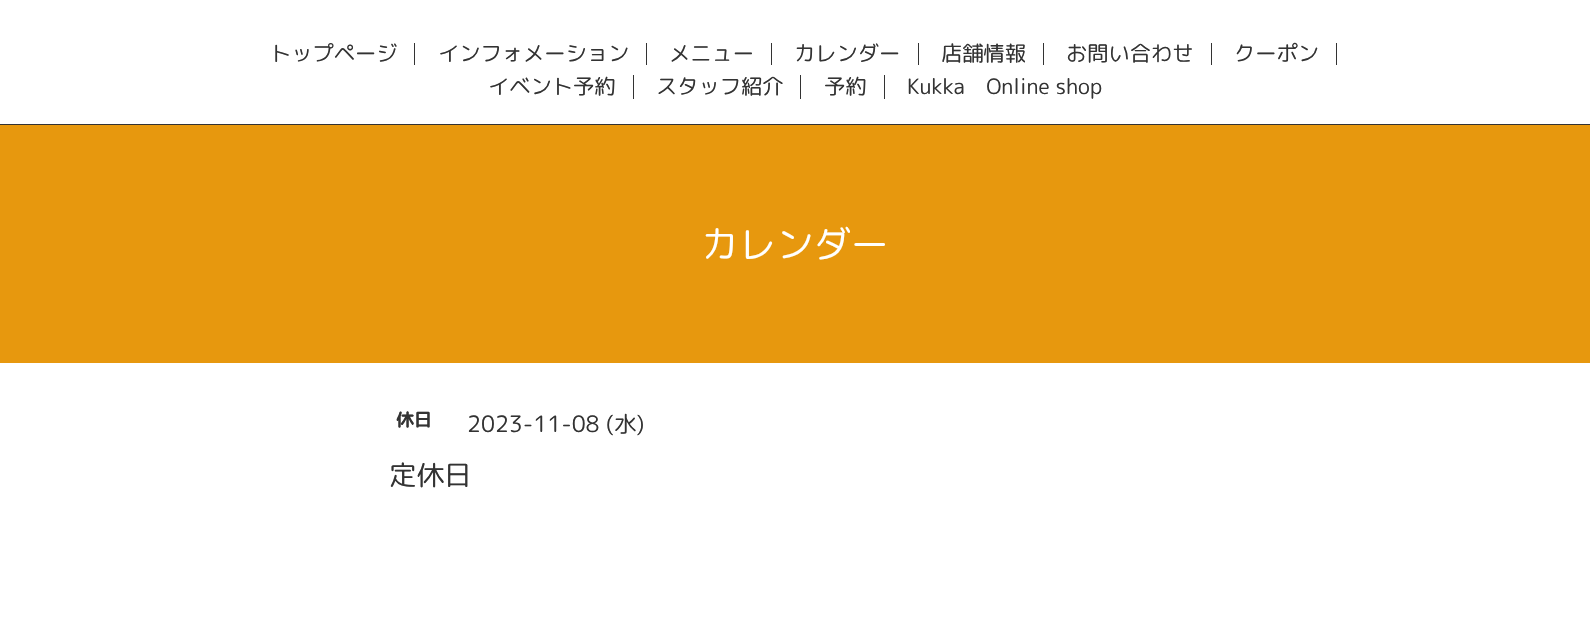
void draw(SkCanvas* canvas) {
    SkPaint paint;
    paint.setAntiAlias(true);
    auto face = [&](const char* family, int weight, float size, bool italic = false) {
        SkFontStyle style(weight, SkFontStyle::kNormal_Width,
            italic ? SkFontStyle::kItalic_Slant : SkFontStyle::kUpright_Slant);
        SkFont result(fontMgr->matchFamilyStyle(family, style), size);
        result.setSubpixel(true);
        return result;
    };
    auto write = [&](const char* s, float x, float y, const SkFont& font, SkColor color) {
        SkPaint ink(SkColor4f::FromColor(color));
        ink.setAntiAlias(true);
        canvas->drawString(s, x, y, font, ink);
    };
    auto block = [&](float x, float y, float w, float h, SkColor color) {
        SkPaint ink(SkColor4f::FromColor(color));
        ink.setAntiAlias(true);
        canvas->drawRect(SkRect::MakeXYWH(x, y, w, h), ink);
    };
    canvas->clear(SK_ColorWHITE);
    block(0, 124, 1590, 1, SkColorSetRGB(51, 51, 51));
    block(414, 43, 1, 22, SkColorSetRGB(51, 51, 51));
    auto kFont1 = face("Rounded Mplus 1c", 400, 21.25f);
    write("トップページ", 270, 61, kFont1, SkColorSetRGB(51, 51, 51));
    block(646, 43, 1, 22, SkColorSetRGB(51, 51, 51));
    write("インフォメーション", 438, 61, kFont1, SkColorSetRGB(51, 51, 51));
    block(771, 43, 1, 22, SkColorSetRGB(51, 51, 51));
    write("メニュー", 669, 61, kFont1, SkColorSetRGB(51, 51, 51));
    block(918, 43, 1, 22, SkColorSetRGB(51, 51, 51));
    write("カレンダー", 794, 61, kFont1, SkColorSetRGB(51, 51, 51));
    block(1043, 43, 1, 22, SkColorSetRGB(51, 51, 51));
    write("店舗情報", 941, 61, kFont1, SkColorSetRGB(51, 51, 51));
    block(1211, 43, 1, 22, SkColorSetRGB(51, 51, 51));
    write("お問い合わせ", 1066, 61, kFont1, SkColorSetRGB(51, 51, 51));
    block(1336, 43, 1, 22, SkColorSetRGB(51, 51, 51));
    write("クーポン", 1234, 61, kFont1, SkColorSetRGB(51, 51, 51));
    block(633, 75, 1, 24, SkColorSetRGB(51, 51, 51));
    write("イベント予約", 488, 94, kFont1, SkColorSetRGB(51, 51, 51));
    block(800, 75, 1, 24, SkColorSetRGB(51, 51, 51));
    write("スタッフ紹介", 656, 94, kFont1, SkColorSetRGB(51, 51, 51));
    block(884, 75, 1, 24, SkColorSetRGB(51, 51, 51));
    write("予約", 824, 94, kFont1, SkColorSetRGB(51, 51, 51));
    write("Kukka　Online shop", 907, 94, kFont1, SkColorSetRGB(51, 51, 51));
    block(0, 125, 1590, 238, SkColorSetRGB(231, 152, 14));
    auto kFont2 = face("Rounded Mplus 1c", 400, 37.5f);
    write("カレンダー", 701, 258, kFont2, SK_ColorWHITE);
    auto kFont3 = face("Rounded Mplus 1c Bold", 700, 18);
    write("休日", 396, 426, kFont3, SkColorSetRGB(51, 51, 51));
    auto kFont4 = face("Rounded Mplus 1c", 400, 22.5f);
    write("2023-11-08 (水)", 467, 432, kFont4, SkColorSetRGB(51, 51, 51));
    auto kFont5 = face("Rounded Mplus 1c", 400, 27.5f);
    write("定休日", 389, 485, kFont5, SkColorSetRGB(51, 51, 51));
}
